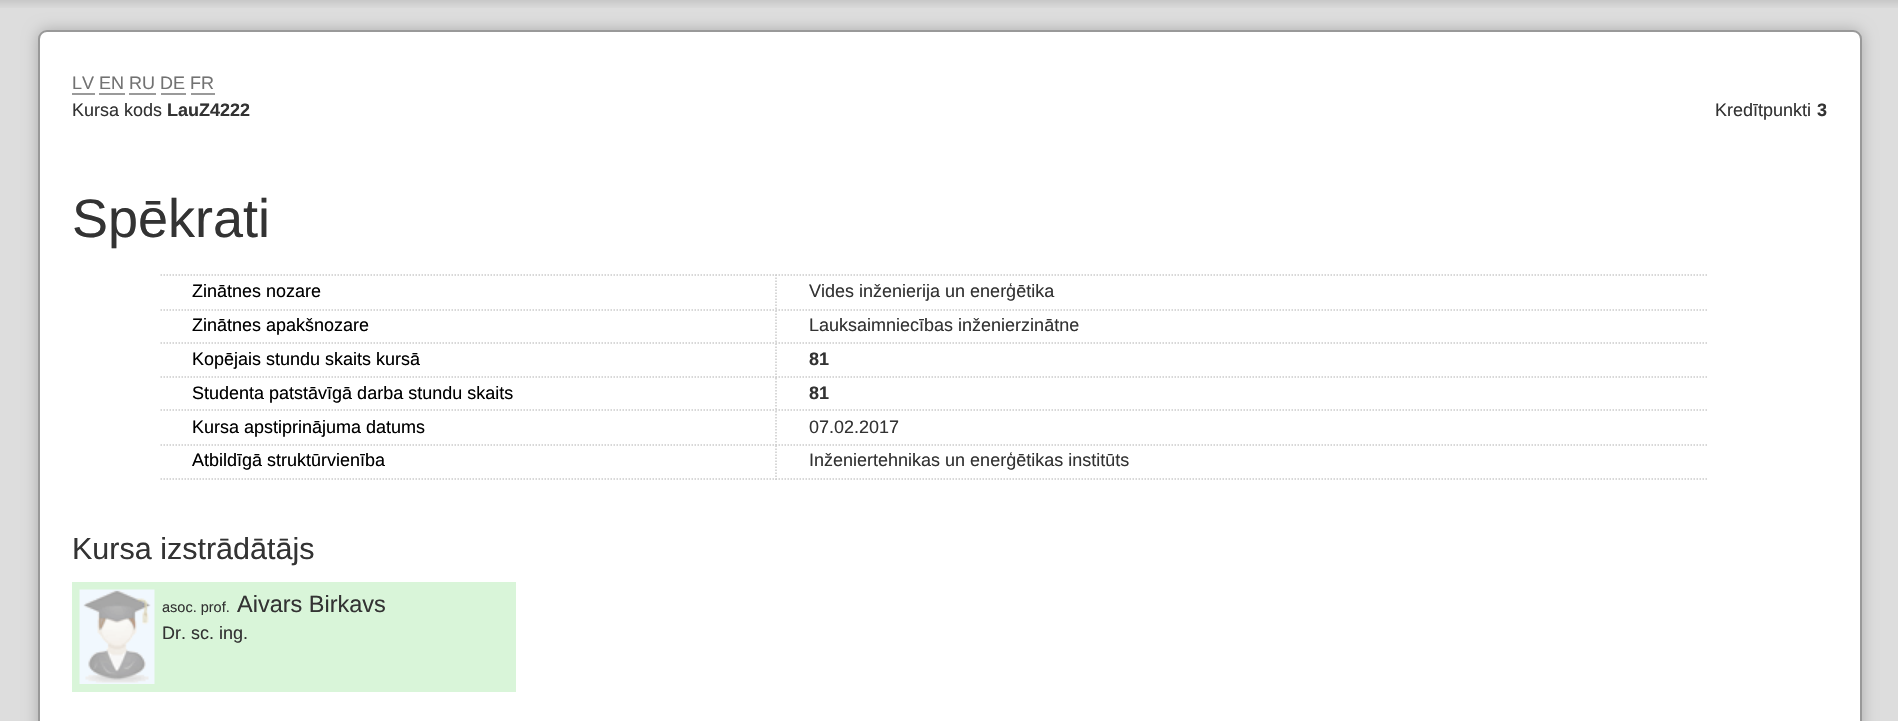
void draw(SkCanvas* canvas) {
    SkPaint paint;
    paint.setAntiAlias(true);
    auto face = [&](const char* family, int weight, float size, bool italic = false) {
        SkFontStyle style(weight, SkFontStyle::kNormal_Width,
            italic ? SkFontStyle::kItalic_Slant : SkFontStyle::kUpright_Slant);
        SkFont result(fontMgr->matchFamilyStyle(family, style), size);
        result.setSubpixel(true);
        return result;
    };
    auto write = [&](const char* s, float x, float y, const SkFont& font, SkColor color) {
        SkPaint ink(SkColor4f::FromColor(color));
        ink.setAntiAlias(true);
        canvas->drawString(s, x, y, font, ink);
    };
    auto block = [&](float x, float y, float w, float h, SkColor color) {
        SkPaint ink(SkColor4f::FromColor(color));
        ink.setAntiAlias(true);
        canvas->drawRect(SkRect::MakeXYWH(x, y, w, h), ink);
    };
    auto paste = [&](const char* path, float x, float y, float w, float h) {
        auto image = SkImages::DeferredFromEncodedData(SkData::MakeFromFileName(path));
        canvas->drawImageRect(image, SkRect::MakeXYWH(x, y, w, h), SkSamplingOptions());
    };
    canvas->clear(SkColorSetRGB(221, 221, 221));
    paste("pic1.png", 0, 0, 1898, 8);
    paint.setColor(SkColorSetRGB(170, 170, 170));
    paint.setMaskFilter(SkMaskFilter::MakeBlur(kNormal_SkBlurStyle, 7.5f));
    canvas->drawRoundRect(SkRect::MakeXYWH(38, 30, 1824, 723), 9, 9, paint);
    paint.setMaskFilter(nullptr);
    paint.setColor(SK_ColorWHITE);
    canvas->drawRoundRect(SkRect::MakeXYWH(39, 31, 1822, 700), 8, 8, paint);
    paint.setStyle(SkPaint::kStroke_Style);
    paint.setStrokeWidth(2);
    paint.setColor(SkColorSetRGB(153, 153, 153));
    canvas->drawRoundRect(SkRect::MakeXYWH(39, 31, 1822, 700), 8, 8, paint);
    auto kFont1 = face("Liberation Sans", 400, 18);
    write("LV EN RU DE FR", 72, 89, kFont1, SkColorSetRGB(114, 114, 114));
    block(72, 93, 23, 2, SkColorSetRGB(154, 154, 154));
    block(99, 93, 26, 2, SkColorSetRGB(154, 154, 154));
    block(129, 93, 27, 2, SkColorSetRGB(154, 154, 154));
    block(161, 93, 25, 2, SkColorSetRGB(154, 154, 154));
    block(191, 93, 24, 2, SkColorSetRGB(154, 154, 154));
    write("Kursa kods", 72, 116, kFont1, SkColorSetRGB(51, 51, 51));
    auto kFont2 = face("Liberation Sans", 700, 18);
    write("LauZ4222", 167, 116, kFont2, SkColorSetRGB(51, 51, 51));
    write("Kredītpunkti", 1715, 116, kFont1, SkColorSetRGB(51, 51, 51));
    write("3", 1817, 116, kFont2, SkColorSetRGB(51, 51, 51));
    auto kFont3 = face("Liberation Sans", 400, 54);
    write("Spēkrati", 72, 237, kFont3, SkColorSetRGB(51, 51, 51));
    paint.setStrokeWidth(1.5f);
    paint.setColor(SkColorSetRGB(204, 204, 204));
    paint.setPathEffect(SkDashPathEffect::Make({{1.5f, 1.5f}}, 0));
    canvas->drawPath(SkPathBuilder().moveTo(160.5f, 275).lineTo(775.5f, 275).detach(), paint);
    paint.setPathEffect(nullptr);
    paint.setPathEffect(SkDashPathEffect::Make({{1.5f, 1.5f}}, 0));
    canvas->drawPath(SkPathBuilder().moveTo(160.5f, 310).lineTo(775.5f, 310).detach(), paint);
    paint.setPathEffect(nullptr);
    write("Zinātnes nozare", 192, 297, kFont1, SK_ColorBLACK);
    paint.setPathEffect(SkDashPathEffect::Make({{1.5f, 1.5f}}, 0));
    canvas->drawPath(SkPathBuilder().moveTo(775.5f, 275).lineTo(1708.5f, 275).detach(), paint);
    paint.setPathEffect(nullptr);
    paint.setPathEffect(SkDashPathEffect::Make({{1.5f, 1.5f}}, 0));
    canvas->drawPath(SkPathBuilder().moveTo(775.5f, 310).lineTo(1708.5f, 310).detach(), paint);
    paint.setPathEffect(nullptr);
    paint.setPathEffect(SkDashPathEffect::Make({{1.5f, 1.5f}}, 0));
    canvas->drawPath(SkPathBuilder().moveTo(776, 274.5f).lineTo(776, 310.5f).detach(), paint);
    paint.setPathEffect(nullptr);
    write("Vides inženierija un enerģētika", 809, 297, kFont1, SkColorSetRGB(51, 51, 51));
    paint.setPathEffect(SkDashPathEffect::Make({{1.5f, 1.5f}}, 0));
    canvas->drawPath(SkPathBuilder().moveTo(160.5f, 343).lineTo(775.5f, 343).detach(), paint);
    paint.setPathEffect(nullptr);
    write("Zinātnes apakšnozare", 192, 331, kFont1, SK_ColorBLACK);
    paint.setPathEffect(SkDashPathEffect::Make({{1.5f, 1.5f}}, 0));
    canvas->drawPath(SkPathBuilder().moveTo(775.5f, 343).lineTo(1708.5f, 343).detach(), paint);
    paint.setPathEffect(nullptr);
    paint.setPathEffect(SkDashPathEffect::Make({{1.5f, 1.5f}}, 0));
    canvas->drawPath(SkPathBuilder().moveTo(776, 310.5f).lineTo(776, 343.5f).detach(), paint);
    paint.setPathEffect(nullptr);
    write("Lauksaimniecības inženierzinātne", 809, 331, kFont1, SkColorSetRGB(51, 51, 51));
    paint.setPathEffect(SkDashPathEffect::Make({{1.5f, 1.5f}}, 0));
    canvas->drawPath(SkPathBuilder().moveTo(160.5f, 377).lineTo(775.5f, 377).detach(), paint);
    paint.setPathEffect(nullptr);
    write("Kopējais stundu skaits kursā", 192, 365, kFont1, SK_ColorBLACK);
    paint.setPathEffect(SkDashPathEffect::Make({{1.5f, 1.5f}}, 0));
    canvas->drawPath(SkPathBuilder().moveTo(775.5f, 377).lineTo(1708.5f, 377).detach(), paint);
    paint.setPathEffect(nullptr);
    paint.setPathEffect(SkDashPathEffect::Make({{1.5f, 1.5f}}, 0));
    canvas->drawPath(SkPathBuilder().moveTo(776, 343.5f).lineTo(776, 378).detach(), paint);
    paint.setPathEffect(nullptr);
    write("81", 809, 365, kFont2, SkColorSetRGB(51, 51, 51));
    paint.setPathEffect(SkDashPathEffect::Make({{1.5f, 1.5f}}, 0));
    canvas->drawPath(SkPathBuilder().moveTo(160.5f, 410).lineTo(775.5f, 410).detach(), paint);
    paint.setPathEffect(nullptr);
    write("Studenta patstāvīgā darba stundu skaits", 192, 399, kFont1, SK_ColorBLACK);
    paint.setPathEffect(SkDashPathEffect::Make({{1.5f, 1.5f}}, 0));
    canvas->drawPath(SkPathBuilder().moveTo(775.5f, 410).lineTo(1708.5f, 410).detach(), paint);
    paint.setPathEffect(nullptr);
    paint.setPathEffect(SkDashPathEffect::Make({{1.5f, 1.5f}}, 0));
    canvas->drawPath(SkPathBuilder().moveTo(776, 378).lineTo(776, 411).detach(), paint);
    paint.setPathEffect(nullptr);
    write("81", 809, 399, kFont2, SkColorSetRGB(51, 51, 51));
    paint.setPathEffect(SkDashPathEffect::Make({{1.5f, 1.5f}}, 0));
    canvas->drawPath(SkPathBuilder().moveTo(160.5f, 445).lineTo(775.5f, 445).detach(), paint);
    paint.setPathEffect(nullptr);
    write("Kursa apstiprinājuma datums", 192, 433, kFont1, SK_ColorBLACK);
    paint.setPathEffect(SkDashPathEffect::Make({{1.5f, 1.5f}}, 0));
    canvas->drawPath(SkPathBuilder().moveTo(775.5f, 445).lineTo(1708.5f, 445).detach(), paint);
    paint.setPathEffect(nullptr);
    paint.setPathEffect(SkDashPathEffect::Make({{1.5f, 1.5f}}, 0));
    canvas->drawPath(SkPathBuilder().moveTo(776, 411).lineTo(776, 445.5f).detach(), paint);
    paint.setPathEffect(nullptr);
    write("07.02.2017", 809, 433, kFont1, SkColorSetRGB(51, 51, 51));
    paint.setPathEffect(SkDashPathEffect::Make({{1.5f, 1.5f}}, 0));
    canvas->drawPath(SkPathBuilder().moveTo(160.5f, 479).lineTo(775.5f, 479).detach(), paint);
    paint.setPathEffect(nullptr);
    write("Atbildīgā struktūrvienība", 192, 466, kFont1, SK_ColorBLACK);
    paint.setPathEffect(SkDashPathEffect::Make({{1.5f, 1.5f}}, 0));
    canvas->drawPath(SkPathBuilder().moveTo(775.5f, 479).lineTo(1708.5f, 479).detach(), paint);
    paint.setPathEffect(nullptr);
    paint.setPathEffect(SkDashPathEffect::Make({{1.5f, 1.5f}}, 0));
    canvas->drawPath(SkPathBuilder().moveTo(776, 445.5f).lineTo(776, 480).detach(), paint);
    paint.setPathEffect(nullptr);
    write("Inženiertehnikas un enerģētikas institūts", 809, 466, kFont1, SkColorSetRGB(51, 51, 51));
    auto kFont4 = face("Liberation Sans", 400, 30.5f);
    write("Kursa izstrādātājs", 72, 559, kFont4, SkColorSetRGB(51, 51, 51));
    block(72, 582, 444, 110, SkColorSetRGB(217, 245, 217));
    paste("pic2.png", 79, 589, 76, 95);
    auto kFont5 = face("Liberation Sans", 400, 14.5f);
    write("asoc. prof.", 162, 612, kFont5, SkColorSetRGB(51, 51, 51));
    auto kFont6 = face("Liberation Sans", 400, 23.5f);
    write("Aivars Birkavs", 237, 612, kFont6, SkColorSetRGB(51, 51, 51));
    write("Dr. sc. ing.", 162, 639, kFont1, SkColorSetRGB(51, 51, 51));
}
